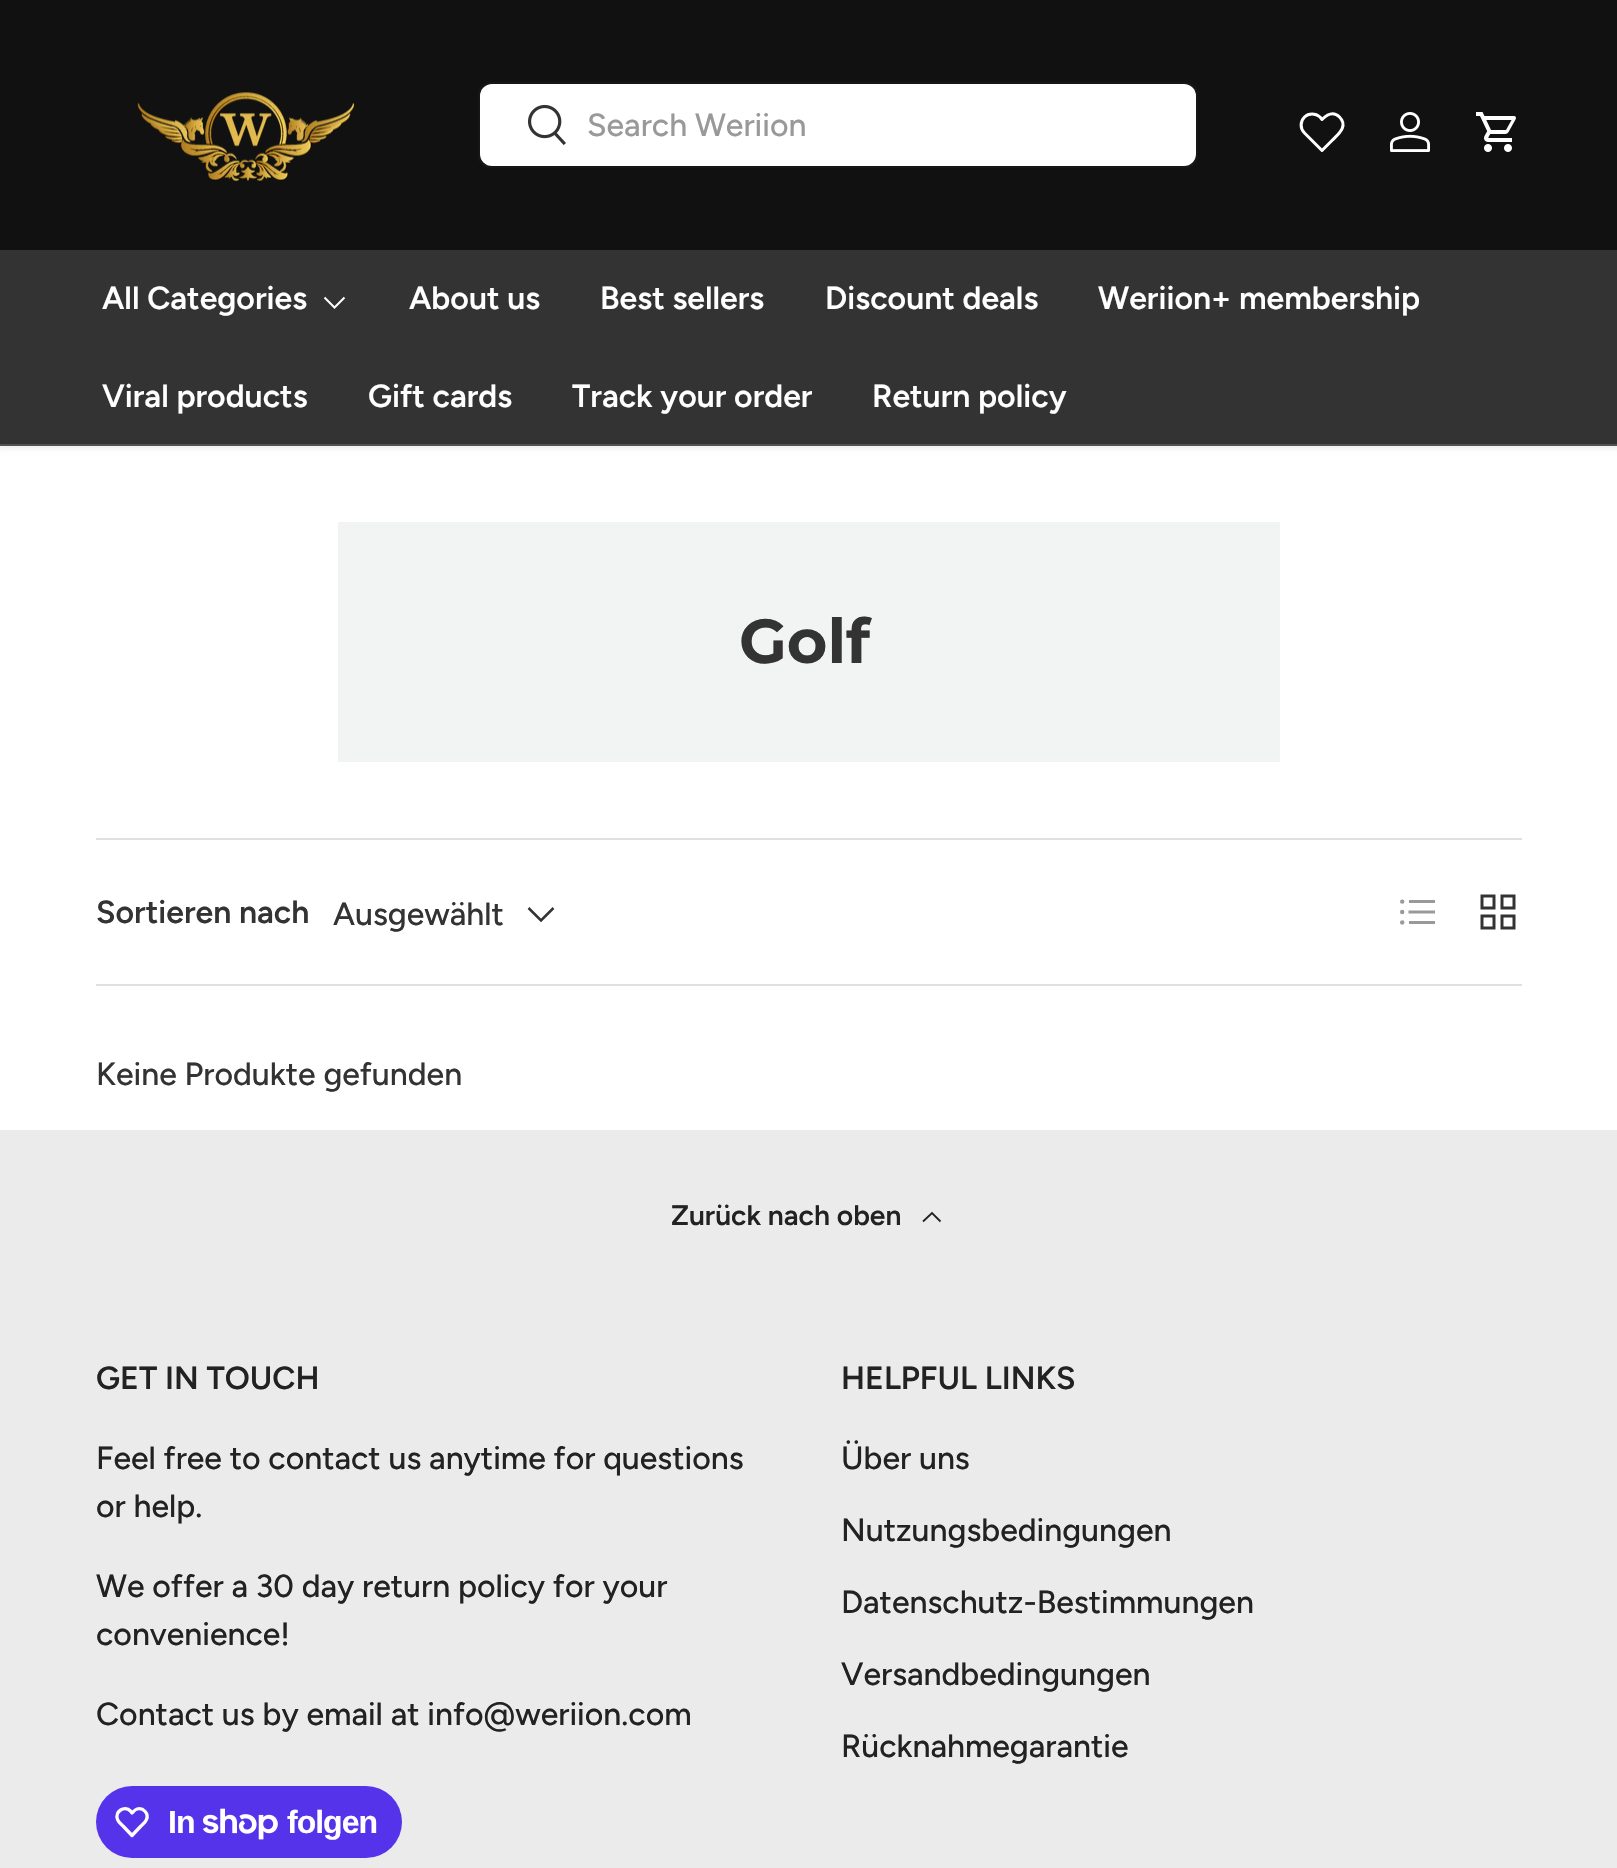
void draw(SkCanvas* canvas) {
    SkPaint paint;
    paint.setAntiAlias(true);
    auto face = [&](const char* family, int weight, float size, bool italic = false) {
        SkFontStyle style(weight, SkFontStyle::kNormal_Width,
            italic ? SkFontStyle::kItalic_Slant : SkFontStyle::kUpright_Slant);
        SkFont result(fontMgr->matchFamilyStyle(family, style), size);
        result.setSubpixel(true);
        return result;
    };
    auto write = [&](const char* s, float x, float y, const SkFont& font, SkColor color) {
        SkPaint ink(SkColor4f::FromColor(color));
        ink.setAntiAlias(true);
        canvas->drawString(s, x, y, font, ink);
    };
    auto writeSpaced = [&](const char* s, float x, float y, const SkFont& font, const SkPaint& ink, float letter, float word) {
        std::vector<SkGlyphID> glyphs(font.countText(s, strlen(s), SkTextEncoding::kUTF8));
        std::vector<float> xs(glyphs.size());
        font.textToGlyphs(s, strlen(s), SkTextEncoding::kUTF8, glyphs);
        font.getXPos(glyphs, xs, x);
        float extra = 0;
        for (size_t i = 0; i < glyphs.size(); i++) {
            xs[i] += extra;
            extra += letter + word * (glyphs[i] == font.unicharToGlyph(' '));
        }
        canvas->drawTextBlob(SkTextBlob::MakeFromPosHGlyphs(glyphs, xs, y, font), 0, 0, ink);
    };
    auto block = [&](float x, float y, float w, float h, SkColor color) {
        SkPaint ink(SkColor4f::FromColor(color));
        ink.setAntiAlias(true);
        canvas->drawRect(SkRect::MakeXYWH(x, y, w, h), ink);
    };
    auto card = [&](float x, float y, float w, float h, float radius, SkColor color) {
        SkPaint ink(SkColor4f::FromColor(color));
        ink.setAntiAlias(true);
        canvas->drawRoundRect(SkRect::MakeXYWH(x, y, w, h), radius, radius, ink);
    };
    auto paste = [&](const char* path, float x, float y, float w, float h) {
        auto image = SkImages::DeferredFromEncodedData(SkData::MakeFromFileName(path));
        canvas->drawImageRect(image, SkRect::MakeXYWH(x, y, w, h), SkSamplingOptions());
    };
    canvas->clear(SK_ColorWHITE);
    paint.setColor(SkColorSetARGB(20, 0, 0, 0));
    paint.setMaskFilter(SkMaskFilter::MakeBlur(kNormal_SkBlurStyle, 3));
    canvas->drawRect(SkRect::MakeXYWH(-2, -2, 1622, 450), paint);
    paint.setMaskFilter(nullptr);
    block(0, 0, 1617, 250, SkColorSetRGB(17, 17, 17));
    paste("pic1.png", 137, 92, 218, 89);
    paint.setStyle(SkPaint::kStroke_Style);
    paint.setStrokeWidth(2);
    paint.setColor(SkColorSetRGB(22, 22, 22));
    canvas->drawRoundRect(SkRect::MakeXYWH(479, 83, 718, 84), 11, 11, paint);
    card(480, 84, 716, 82, 12, SK_ColorWHITE);
    paste("pic2.png", 528, 104, 38, 41);
    auto kFont1 = face("Figtree", 500, 32);
    write("Search Weriion", 587, 136, kFont1, SkColorSetRGB(153, 153, 153));
    paint.setStrokeWidth(3);
    paint.setStrokeCap(SkPaint::kRound_Cap);
    paint.setStrokeJoin(SkPaint::kRound_Join);
    paint.setColor(SK_ColorWHITE);
    canvas->drawPath(SkPathBuilder().moveTo(1339.5f, 117).cubicTo(1333.5f, 111, 1327, 114.5f, 1322, 119.5f).lineTo(1320, 117).cubicTo(1315.5f, 113, 1308.5f, 113, 1304.5f, 117).cubicTo(1300, 121.5f, 1300, 128.5f, 1304.5f, 133).lineTo(1322, 150.5f).lineTo(1332.5f, 140).cubicTo(1338.5f, 134, 1348.5f, 126, 1339.5f, 117).close().detach(), paint);
    paste("pic3.png", 1390, 112, 40, 40);
    paste("pic4.png", 1476, 112, 40, 40);
    block(0, 250, 1617, 194, SkColorSetRGB(51, 51, 51));
    auto kFont2 = face("Figtree", 600, 32);
    write("All Categories", 102, 309, kFont2, SK_ColorWHITE);
    paint.setStrokeWidth(2);
    paint.setStrokeCap(SkPaint::kButt_Cap);
    paint.setStrokeJoin(SkPaint::kMiter_Join);
    canvas->drawPath(SkPathBuilder().moveTo(344.5f, 297.5f).lineTo(334.5f, 307.5f).lineTo(324.5f, 297.5f).detach(), paint);
    write("About us", 409, 309, kFont2, SK_ColorWHITE);
    write("Best sellers", 600, 309, kFont2, SK_ColorWHITE);
    write("Discount deals", 825, 309, kFont2, SK_ColorWHITE);
    write("Weriion+ membership", 1098, 309, kFont2, SK_ColorWHITE);
    write("Viral products", 102, 407, kFont2, SK_ColorWHITE);
    write("Gift cards", 368, 407, kFont2, SK_ColorWHITE);
    write("Track your order", 572, 407, kFont2, SK_ColorWHITE);
    write("Return policy", 872, 407, kFont2, SK_ColorWHITE);
    block(0, 444, 1617, 2, SkColorSetRGB(82, 82, 82));
    block(338, 522, 942, 240, SkColorSetRGB(242, 244, 243));
    auto kFont3 = face("Montserrat", 700, 62);
    write("Golf", 739, 663, kFont3, SkColorSetRGB(51, 51, 51));
    block(96, 838, 1426, 2, SkColorSetRGB(224, 224, 224));
    block(96, 984, 1426, 2, SkColorSetRGB(224, 224, 224));
    write("Sortieren nach", 96, 923, kFont2, SkColorSetRGB(51, 51, 51));
    write("Ausgewählt", 333, 925, kFont1, SkColorSetRGB(51, 51, 51));
    paint.setStrokeWidth(2.5f);
    paint.setColor(SkColorSetRGB(51, 51, 51));
    canvas->drawPath(SkPathBuilder().moveTo(553.5f, 908).lineTo(541, 920.5f).lineTo(528.5f, 908).detach(), paint);
    paint.setStyle(SkPaint::kFill_Style);
    paint.setColor(SkColorSetRGB(153, 153, 153));
    canvas->drawCircle(1402.2f, 901.6f, 2.2f, paint);
    block(1409, 900, 26, 3, SkColorSetRGB(153, 153, 153));
    canvas->drawCircle(1402.2f, 912, 2.2f, paint);
    paint.setStyle(SkPaint::kStroke_Style);
    paint.setStrokeWidth(3);
    canvas->drawPath(SkPathBuilder().moveTo(1408.5f, 912).lineTo(1435, 912).detach(), paint);
    paint.setStyle(SkPaint::kFill_Style);
    canvas->drawCircle(1402.2f, 922.4f, 2.2f, paint);
    block(1409, 921, 26, 3, SkColorSetRGB(153, 153, 153));
    paint.setStyle(SkPaint::kStroke_Style);
    paint.setColor(SkColorSetRGB(51, 51, 51));
    canvas->drawPath(SkPathBuilder().moveTo(1482, 896).lineTo(1494, 896).lineTo(1494, 908).lineTo(1482, 908).close().moveTo(1502, 896).lineTo(1514, 896).lineTo(1514, 908).lineTo(1502, 908).close().moveTo(1482, 916).lineTo(1494, 916).lineTo(1494, 928).lineTo(1482, 928).close().moveTo(1502, 916).lineTo(1514, 916).lineTo(1514, 928).lineTo(1502, 928).close().detach(), paint);
    write("Keine Produkte gefunden", 96, 1085, kFont1, SkColorSetRGB(51, 51, 51));
    block(0, 1130, 1617, 738, SkColorSetRGB(235, 235, 235));
    auto kFont4 = face("Figtree", 600, 28.25f);
    write("Zurück nach oben", 671, 1225, kFont4, SkColorSetRGB(34, 34, 34));
    paint.setStrokeWidth(1.8f);
    paint.setColor(SkColorSetRGB(34, 34, 34));
    canvas->drawPath(SkPathBuilder().moveTo(923, 1221.5f).lineTo(932, 1213).lineTo(940.5f, 1221.5f).detach(), paint);
    write("GET IN TOUCH", 96, 1389, kFont2, SkColorSetRGB(34, 34, 34));
    write("Feel free to contact us anytime for questions", 96, 1469, kFont1, SkColorSetRGB(34, 34, 34));
    write("or help.", 96, 1517, kFont1, SkColorSetRGB(34, 34, 34));
    write("We offer a 30 day return policy for your", 96, 1597, kFont1, SkColorSetRGB(34, 34, 34));
    write("convenience!", 96, 1645, kFont1, SkColorSetRGB(34, 34, 34));
    write("Contact us by email at info@weriion.com", 96, 1725, kFont1, SkColorSetRGB(34, 34, 34));
    card(96, 1786, 306, 72, 36, SkColorSetRGB(84, 51, 235));
    paint.setStrokeWidth(3.3f);
    paint.setStrokeJoin(SkPaint::kRound_Join);
    paint.setColor(SK_ColorWHITE);
    canvas->drawPath(SkPathBuilder().moveTo(130.5f, 1811).lineTo(132, 1813).cubicTo(133.5f, 1811.5f, 135, 1809.5f, 137, 1809).cubicTo(143, 1807, 149, 1813.5f, 146.5f, 1819.5f).cubicTo(145.5f, 1822.5f, 142.5f, 1824.5f, 140.5f, 1826.5f).lineTo(132, 1835.5f).lineTo(123.5f, 1826.5f).cubicTo(121.5f, 1824.5f, 118.5f, 1822.5f, 117.5f, 1819.5f).cubicTo(114.5f, 1811.5f, 124.5f, 1805, 130.5f, 1811).close().detach(), paint);
    auto kFont5 = face("Liberation Sans", 700, 32);
    paint.setStyle(SkPaint::kFill_Style);
    writeSpaced("In", 168, 1833, kFont5, paint, -1, 0);
    paste("pic5.png", 203, 1808, 75, 32);
    writeSpaced("folgen", 287, 1833, kFont5, paint, -1, 0);
    write("HELPFUL LINKS", 841, 1389, kFont2, SkColorSetRGB(34, 34, 34));
    write("Über uns", 841, 1469, kFont1, SkColorSetRGB(34, 34, 34));
    write("Nutzungsbedingungen", 841, 1541, kFont1, SkColorSetRGB(34, 34, 34));
    write("Datenschutz-Bestimmungen", 841, 1613, kFont1, SkColorSetRGB(34, 34, 34));
    write("Versandbedingungen", 841, 1685, kFont1, SkColorSetRGB(34, 34, 34));
    write("Rücknahmegarantie", 841, 1757, kFont1, SkColorSetRGB(34, 34, 34));
}
